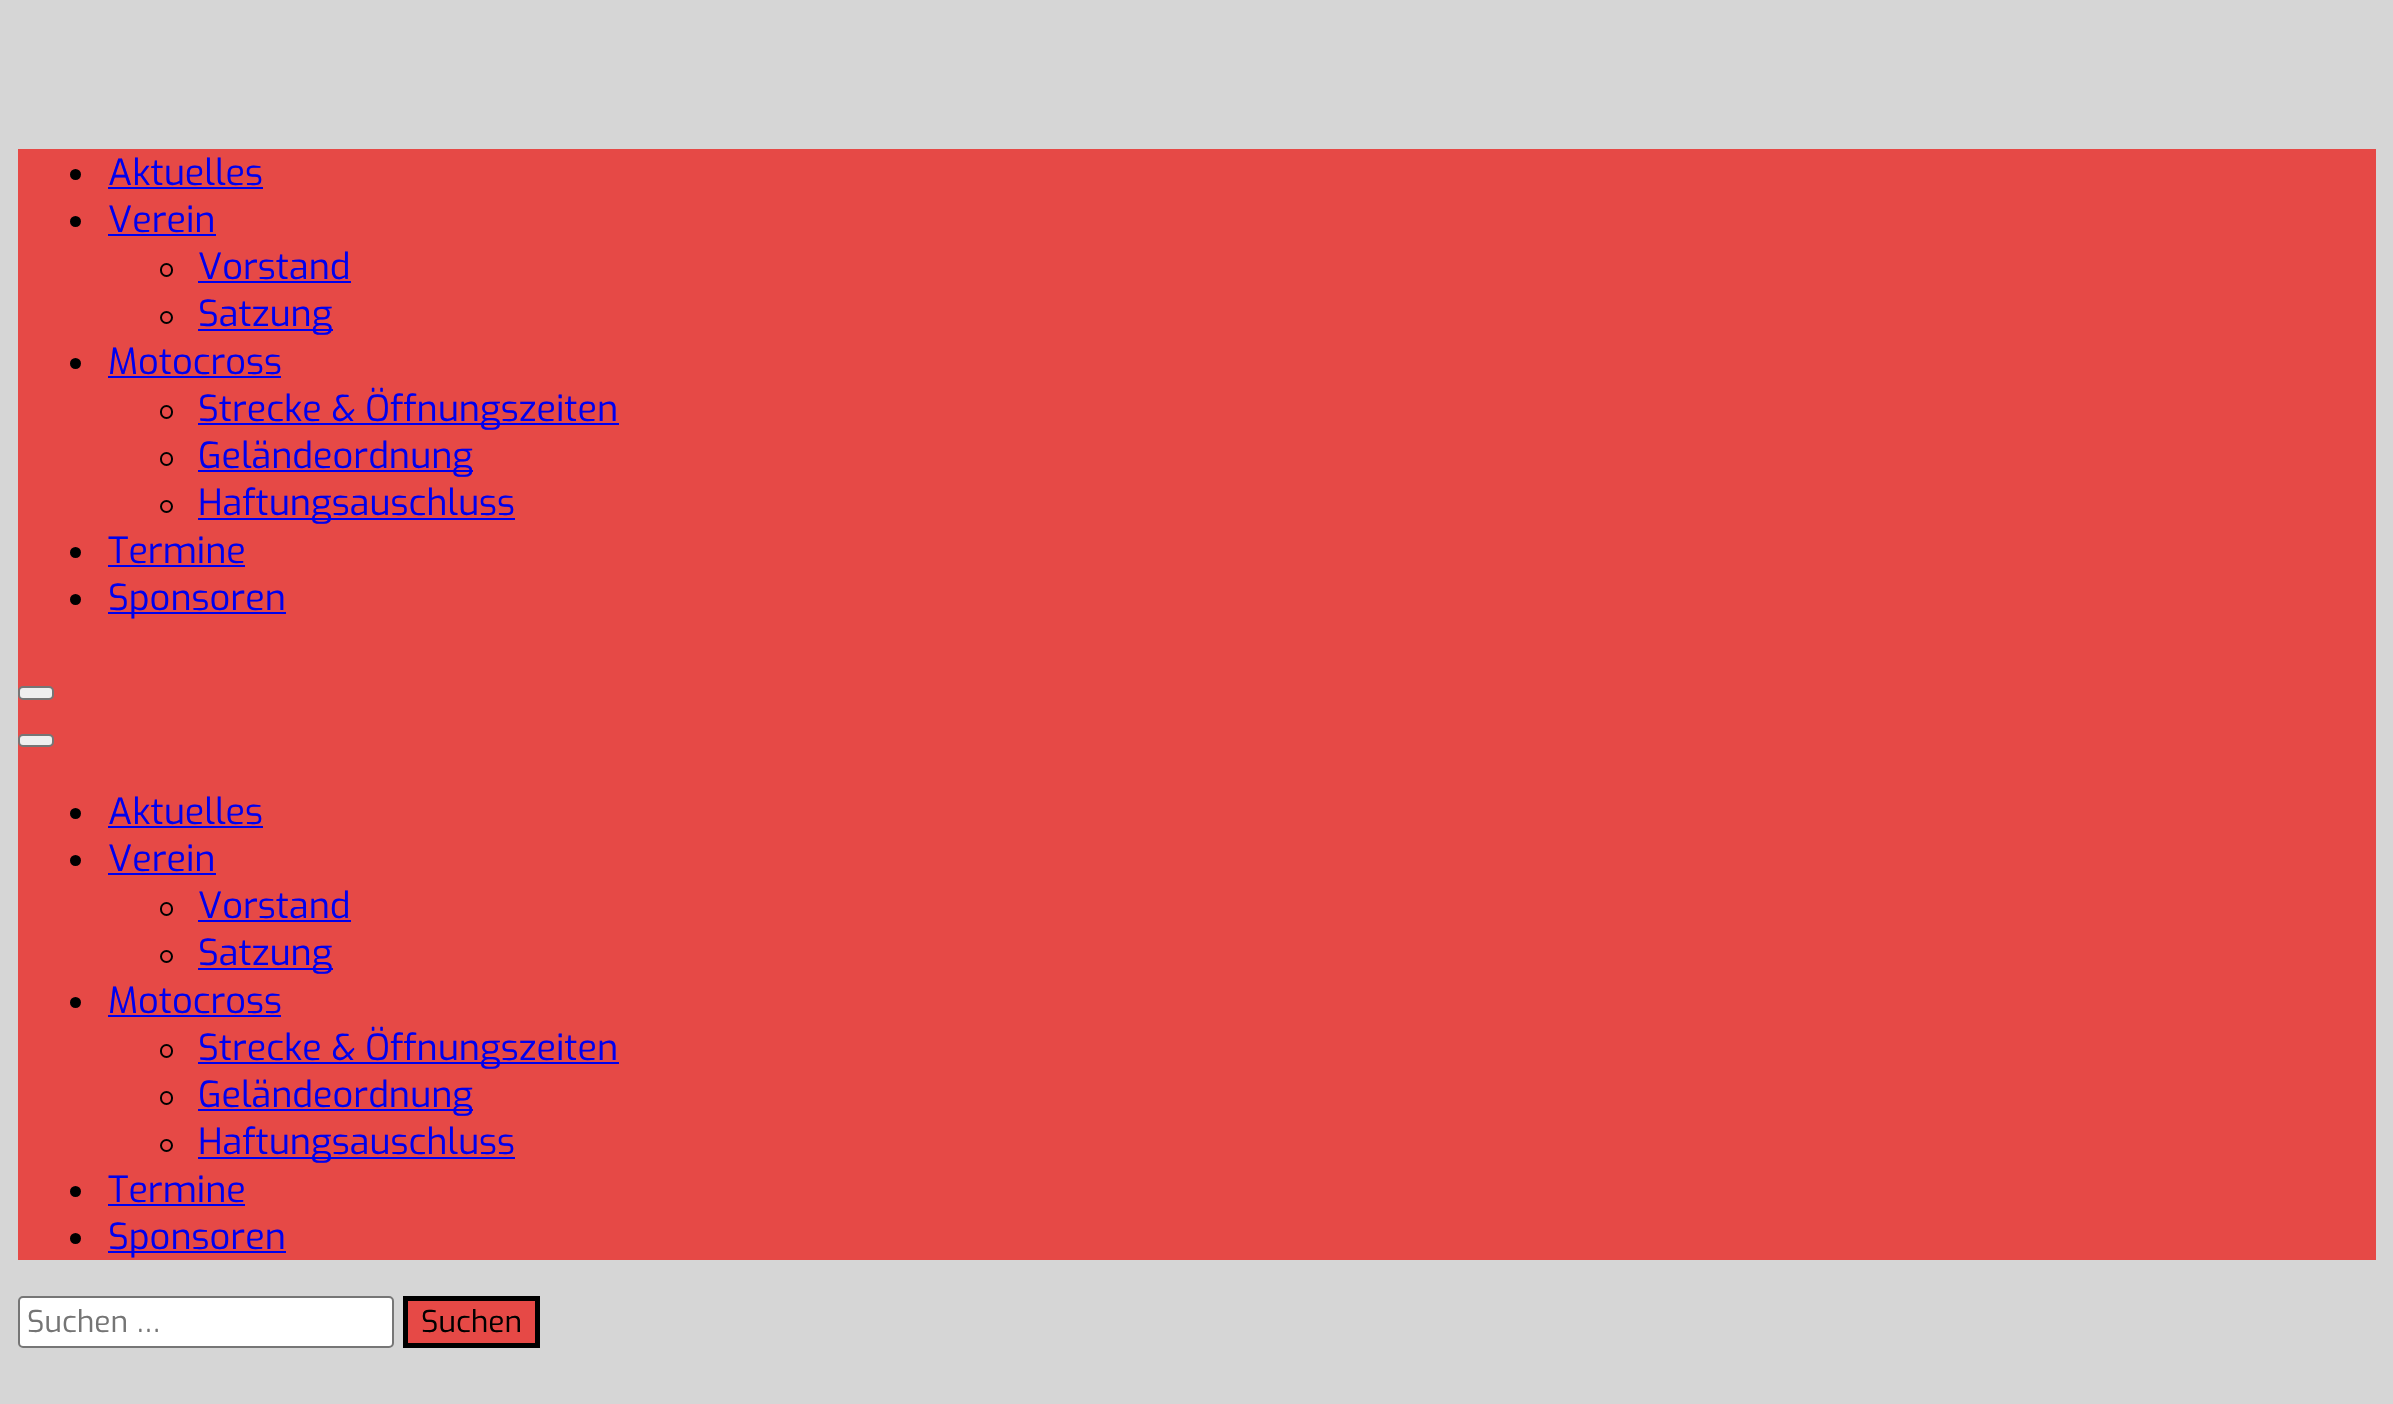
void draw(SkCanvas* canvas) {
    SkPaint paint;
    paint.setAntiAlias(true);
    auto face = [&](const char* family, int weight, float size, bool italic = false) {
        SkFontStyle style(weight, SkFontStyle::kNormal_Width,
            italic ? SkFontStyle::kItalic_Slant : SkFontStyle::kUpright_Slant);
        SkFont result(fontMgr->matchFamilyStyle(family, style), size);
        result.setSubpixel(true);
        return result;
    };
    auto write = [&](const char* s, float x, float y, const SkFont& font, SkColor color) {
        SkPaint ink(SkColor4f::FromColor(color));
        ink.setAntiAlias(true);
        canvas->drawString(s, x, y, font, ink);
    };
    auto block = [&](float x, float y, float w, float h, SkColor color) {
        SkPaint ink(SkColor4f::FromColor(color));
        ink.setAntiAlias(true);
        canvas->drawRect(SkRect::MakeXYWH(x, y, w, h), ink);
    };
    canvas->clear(SkColorSetRGB(214, 214, 214));
    block(18, 149, 2358, 1111, SkColorSetRGB(230, 73, 70));
    paint.setColor(SK_ColorBLACK);
    canvas->drawCircle(75.5f, 174.5f, 5.5f, paint);
    auto kFont1 = face("Exo", 400, 36);
    write("Aktuelles", 108, 185, kFont1, SkColorSetRGB(0, 0, 238));
    block(108, 187, 155, 2, SkColorSetRGB(0, 0, 238));
    canvas->drawCircle(75.5f, 221.5f, 5.5f, paint);
    write("Verein", 108, 232, kFont1, SkColorSetRGB(0, 0, 238));
    block(108, 234, 108, 2, SkColorSetRGB(0, 0, 238));
    paint.setStyle(SkPaint::kStroke_Style);
    paint.setStrokeWidth(2);
    canvas->drawRoundRect(SkRect::MakeXYWH(161, 264, 11, 12), 5.5f, 5.5f, paint);
    write("Vorstand", 198, 279, kFont1, SkColorSetRGB(0, 0, 238));
    block(198, 281, 153, 2, SkColorSetRGB(0, 0, 238));
    canvas->drawCircle(166.5f, 317.5f, 5.5f, paint);
    block(198, 329, 135, 2, SkColorSetRGB(0, 0, 238));
    write("Satzung", 198, 326, kFont1, SkColorSetRGB(0, 0, 238));
    paint.setStyle(SkPaint::kFill_Style);
    canvas->drawCircle(75.5f, 363.5f, 5.5f, paint);
    write("Motocross", 108, 374, kFont1, SkColorSetRGB(0, 0, 238));
    block(108, 376, 173, 2, SkColorSetRGB(0, 0, 238));
    paint.setStyle(SkPaint::kStroke_Style);
    canvas->drawRoundRect(SkRect::MakeXYWH(161, 406, 11, 12), 5.5f, 5.5f, paint);
    block(198, 423, 421, 2, SkColorSetRGB(0, 0, 238));
    write("Strecke & Öffnungszeiten", 198, 421, kFont1, SkColorSetRGB(0, 0, 238));
    canvas->drawRoundRect(SkRect::MakeXYWH(161, 453, 11, 12), 5.5f, 5.5f, paint);
    block(198, 470, 275, 2, SkColorSetRGB(0, 0, 238));
    write("Geländeordnung", 198, 468, kFont1, SkColorSetRGB(0, 0, 238));
    canvas->drawCircle(166.5f, 506.5f, 5.5f, paint);
    block(198, 518, 317, 2, SkColorSetRGB(0, 0, 238));
    write("Haftungsauschluss", 198, 515, kFont1, SkColorSetRGB(0, 0, 238));
    paint.setStyle(SkPaint::kFill_Style);
    canvas->drawCircle(75.5f, 552.5f, 5.5f, paint);
    write("Termine", 108, 563, kFont1, SkColorSetRGB(0, 0, 238));
    block(108, 565, 137, 2, SkColorSetRGB(0, 0, 238));
    canvas->drawCircle(75.5f, 599.5f, 5.5f, paint);
    block(108, 612, 178, 2, SkColorSetRGB(0, 0, 238));
    write("Sponsoren", 108, 610, kFont1, SkColorSetRGB(0, 0, 238));
    paint.setColor(SkColorSetRGB(239, 239, 239));
    canvas->drawRoundRect(SkRect::MakeXYWH(19, 687, 34, 12), 4, 4, paint);
    paint.setStyle(SkPaint::kStroke_Style);
    paint.setColor(SkColorSetRGB(118, 118, 118));
    canvas->drawRoundRect(SkRect::MakeXYWH(19, 687, 34, 12), 4, 4, paint);
    paint.setStyle(SkPaint::kFill_Style);
    paint.setColor(SkColorSetRGB(239, 239, 239));
    canvas->drawRoundRect(SkRect::MakeXYWH(19, 735, 34, 11), 4, 4, paint);
    paint.setStyle(SkPaint::kStroke_Style);
    paint.setColor(SkColorSetRGB(118, 118, 118));
    canvas->drawRoundRect(SkRect::MakeXYWH(19, 735, 34, 11), 4, 4, paint);
    paint.setStyle(SkPaint::kFill_Style);
    paint.setColor(SK_ColorBLACK);
    canvas->drawCircle(75.5f, 813.5f, 5.5f, paint);
    write("Aktuelles", 108, 824, kFont1, SkColorSetRGB(0, 0, 238));
    block(108, 826, 155, 2, SkColorSetRGB(0, 0, 238));
    canvas->drawCircle(75.5f, 860.5f, 5.5f, paint);
    write("Verein", 108, 871, kFont1, SkColorSetRGB(0, 0, 238));
    block(108, 873, 108, 2, SkColorSetRGB(0, 0, 238));
    paint.setStyle(SkPaint::kStroke_Style);
    canvas->drawRoundRect(SkRect::MakeXYWH(161, 903, 11, 12), 5.5f, 5.5f, paint);
    write("Vorstand", 198, 918, kFont1, SkColorSetRGB(0, 0, 238));
    block(198, 920, 153, 2, SkColorSetRGB(0, 0, 238));
    canvas->drawCircle(166.5f, 956.5f, 5.5f, paint);
    block(198, 968, 135, 2, SkColorSetRGB(0, 0, 238));
    write("Satzung", 198, 965, kFont1, SkColorSetRGB(0, 0, 238));
    paint.setStyle(SkPaint::kFill_Style);
    canvas->drawCircle(75.5f, 1002.5f, 5.5f, paint);
    write("Motocross", 108, 1013, kFont1, SkColorSetRGB(0, 0, 238));
    block(108, 1015, 173, 2, SkColorSetRGB(0, 0, 238));
    paint.setStyle(SkPaint::kStroke_Style);
    canvas->drawRoundRect(SkRect::MakeXYWH(161, 1045, 11, 12), 5.5f, 5.5f, paint);
    block(198, 1062, 421, 2, SkColorSetRGB(0, 0, 238));
    write("Strecke & Öffnungszeiten", 198, 1060, kFont1, SkColorSetRGB(0, 0, 238));
    canvas->drawRoundRect(SkRect::MakeXYWH(161, 1092, 11, 12), 5.5f, 5.5f, paint);
    block(198, 1109, 275, 2, SkColorSetRGB(0, 0, 238));
    write("Geländeordnung", 198, 1107, kFont1, SkColorSetRGB(0, 0, 238));
    canvas->drawCircle(166.5f, 1145.5f, 5.5f, paint);
    block(198, 1157, 317, 2, SkColorSetRGB(0, 0, 238));
    write("Haftungsauschluss", 198, 1154, kFont1, SkColorSetRGB(0, 0, 238));
    paint.setStyle(SkPaint::kFill_Style);
    canvas->drawCircle(75.5f, 1191.5f, 5.5f, paint);
    write("Termine", 108, 1202, kFont1, SkColorSetRGB(0, 0, 238));
    block(108, 1204, 137, 2, SkColorSetRGB(0, 0, 238));
    canvas->drawCircle(75.5f, 1238.5f, 5.5f, paint);
    block(108, 1251, 178, 2, SkColorSetRGB(0, 0, 238));
    write("Sponsoren", 108, 1249, kFont1, SkColorSetRGB(0, 0, 238));
    paint.setColor(SK_ColorWHITE);
    canvas->drawRoundRect(SkRect::MakeXYWH(19, 1297, 374, 50), 4, 4, paint);
    paint.setStyle(SkPaint::kStroke_Style);
    paint.setColor(SkColorSetRGB(118, 118, 118));
    canvas->drawRoundRect(SkRect::MakeXYWH(19, 1297, 374, 50), 4, 4, paint);
    auto kFont2 = face("Exo", 400, 30);
    write("Suchen …", 27, 1332, kFont2, SkColorSetRGB(117, 117, 117));
    paint.setStyle(SkPaint::kFill_Style);
    paint.setColor(SkColorSetRGB(230, 73, 70));
    canvas->drawRect(SkRect::MakeXYWH(405.5f, 1298.5f, 132, 47), paint);
    paint.setStyle(SkPaint::kStroke_Style);
    paint.setStrokeWidth(5);
    paint.setColor(SK_ColorBLACK);
    canvas->drawRect(SkRect::MakeXYWH(405.5f, 1298.5f, 132, 47), paint);
    write("Suchen", 421, 1332, kFont2, SK_ColorBLACK);
}
